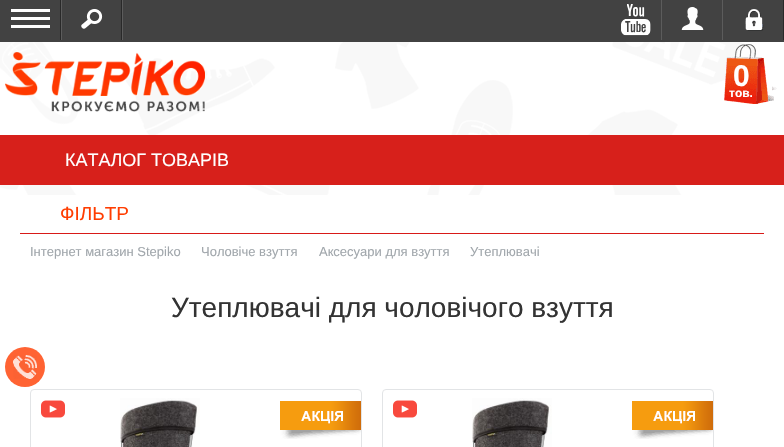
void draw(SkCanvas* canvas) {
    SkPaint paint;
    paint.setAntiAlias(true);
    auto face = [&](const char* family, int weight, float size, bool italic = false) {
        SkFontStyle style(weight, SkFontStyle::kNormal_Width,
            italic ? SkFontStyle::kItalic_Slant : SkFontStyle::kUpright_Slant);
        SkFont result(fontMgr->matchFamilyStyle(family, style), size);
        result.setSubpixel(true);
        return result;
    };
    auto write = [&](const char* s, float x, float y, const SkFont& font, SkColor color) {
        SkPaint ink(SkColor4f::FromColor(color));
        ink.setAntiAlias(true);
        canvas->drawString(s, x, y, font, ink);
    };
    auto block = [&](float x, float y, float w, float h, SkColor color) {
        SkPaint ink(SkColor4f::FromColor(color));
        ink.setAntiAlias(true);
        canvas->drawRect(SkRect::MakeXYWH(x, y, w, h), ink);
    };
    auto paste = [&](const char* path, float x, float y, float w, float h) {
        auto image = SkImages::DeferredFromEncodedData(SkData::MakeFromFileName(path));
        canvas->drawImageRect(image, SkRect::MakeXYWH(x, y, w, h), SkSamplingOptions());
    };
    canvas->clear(SK_ColorWHITE);
    paste("pic1.png", 0, 42, 756, 153);
    block(0, 0, 784, 42, SkColorSetRGB(66, 66, 66));
    block(61, 0, 1, 40, SkColorSetRGB(92, 92, 92));
    block(60, 0, 1, 40, SkColorSetRGB(41, 41, 41));
    block(11, 9, 39, 3, SK_ColorWHITE);
    block(11, 17, 39, 3, SK_ColorWHITE);
    block(11, 25, 39, 3, SK_ColorWHITE);
    block(122, 0, 1, 40, SkColorSetRGB(92, 92, 92));
    paste("pic2.png", 81, 9, 22, 20);
    block(121, 0, 1, 40, SkColorSetRGB(41, 41, 41));
    paste("pic3.png", 621, 4, 30, 32);
    block(661, 0, 1, 40, SkColorSetRGB(92, 92, 92));
    paste("pic4.png", 681, 7, 23, 23);
    block(722, 0, 1, 40, SkColorSetRGB(92, 92, 92));
    paste("pic5.png", 745, 9, 19, 22);
    block(783, 0, 1, 40, SkColorSetRGB(41, 41, 41));
    paint.setColor(SkColorSetRGB(255, 99, 51));
    canvas->drawCircle(25, 367, 20, paint);
    paste("pic6.png", 13, 355, 24, 24);
    paste("pic7.png", 5, 52, 200, 60);
    paste("pic8.png", 724, 44, 53, 60);
    auto kFont1 = face("Liberation Sans", 700, 30);
    write("0", 733, 86, kFont1, SK_ColorWHITE);
    auto kFont2 = face("Liberation Sans", 700, 12);
    write("тов.", 729, 97, kFont2, SK_ColorWHITE);
    block(0, 135, 784, 50, SkColorSetRGB(215, 32, 27));
    auto kFont3 = face("Liberation Sans", 400, 18);
    write("КАТАЛОГ ТОВАРІВ", 65, 166, kFont3, SK_ColorWHITE);
    block(20, 233, 744, 1, SkColorSetRGB(216, 26, 24));
    auto kFont4 = face("Liberation Sans", 400, 19);
    write("ФІЛЬТР", 60, 220, kFont4, SkColorSetRGB(255, 61, 1));
    auto kFont5 = face("Liberation Sans", 400, 13);
    write("Інтернет магазин Stepiko", 30, 256, kFont5, SkColorSetRGB(161, 167, 172));
    write("Чоловіче взуття", 201, 256, kFont5, SkColorSetRGB(161, 167, 172));
    write("Аксесуари для взуття", 319, 256, kFont5, SkColorSetRGB(161, 167, 172));
    write("Утеплювачі", 470, 256, kFont5, SkColorSetRGB(161, 167, 172));
    auto kFont6 = face("Liberation Sans", 400, 28);
    write("Утеплювачі для чоловічого взуття", 171, 317, kFont6, SkColorSetRGB(51, 51, 51));
    paint.setStyle(SkPaint::kStroke_Style);
    paint.setStrokeWidth(1);
    paint.setColor(SkColorSetRGB(226, 228, 230));
    canvas->drawRoundRect(SkRect::MakeXYWH(30.5f, 389.5f, 331, 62), 3.5f, 3.5f, paint);
    paste("pic9.png", 41, 400, 24, 18);
    paste("pic10.png", 120, 398, 80, 49);
    paste("pic11.png", 280, 401, 81, 38);
    canvas->drawRoundRect(SkRect::MakeXYWH(382.5f, 389.5f, 331, 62), 3.5f, 3.5f, paint);
    paste("pic9.png", 393, 400, 24, 18);
    paste("pic12.png", 472, 398, 80, 49);
    paste("pic11.png", 632, 401, 81, 38);
}
